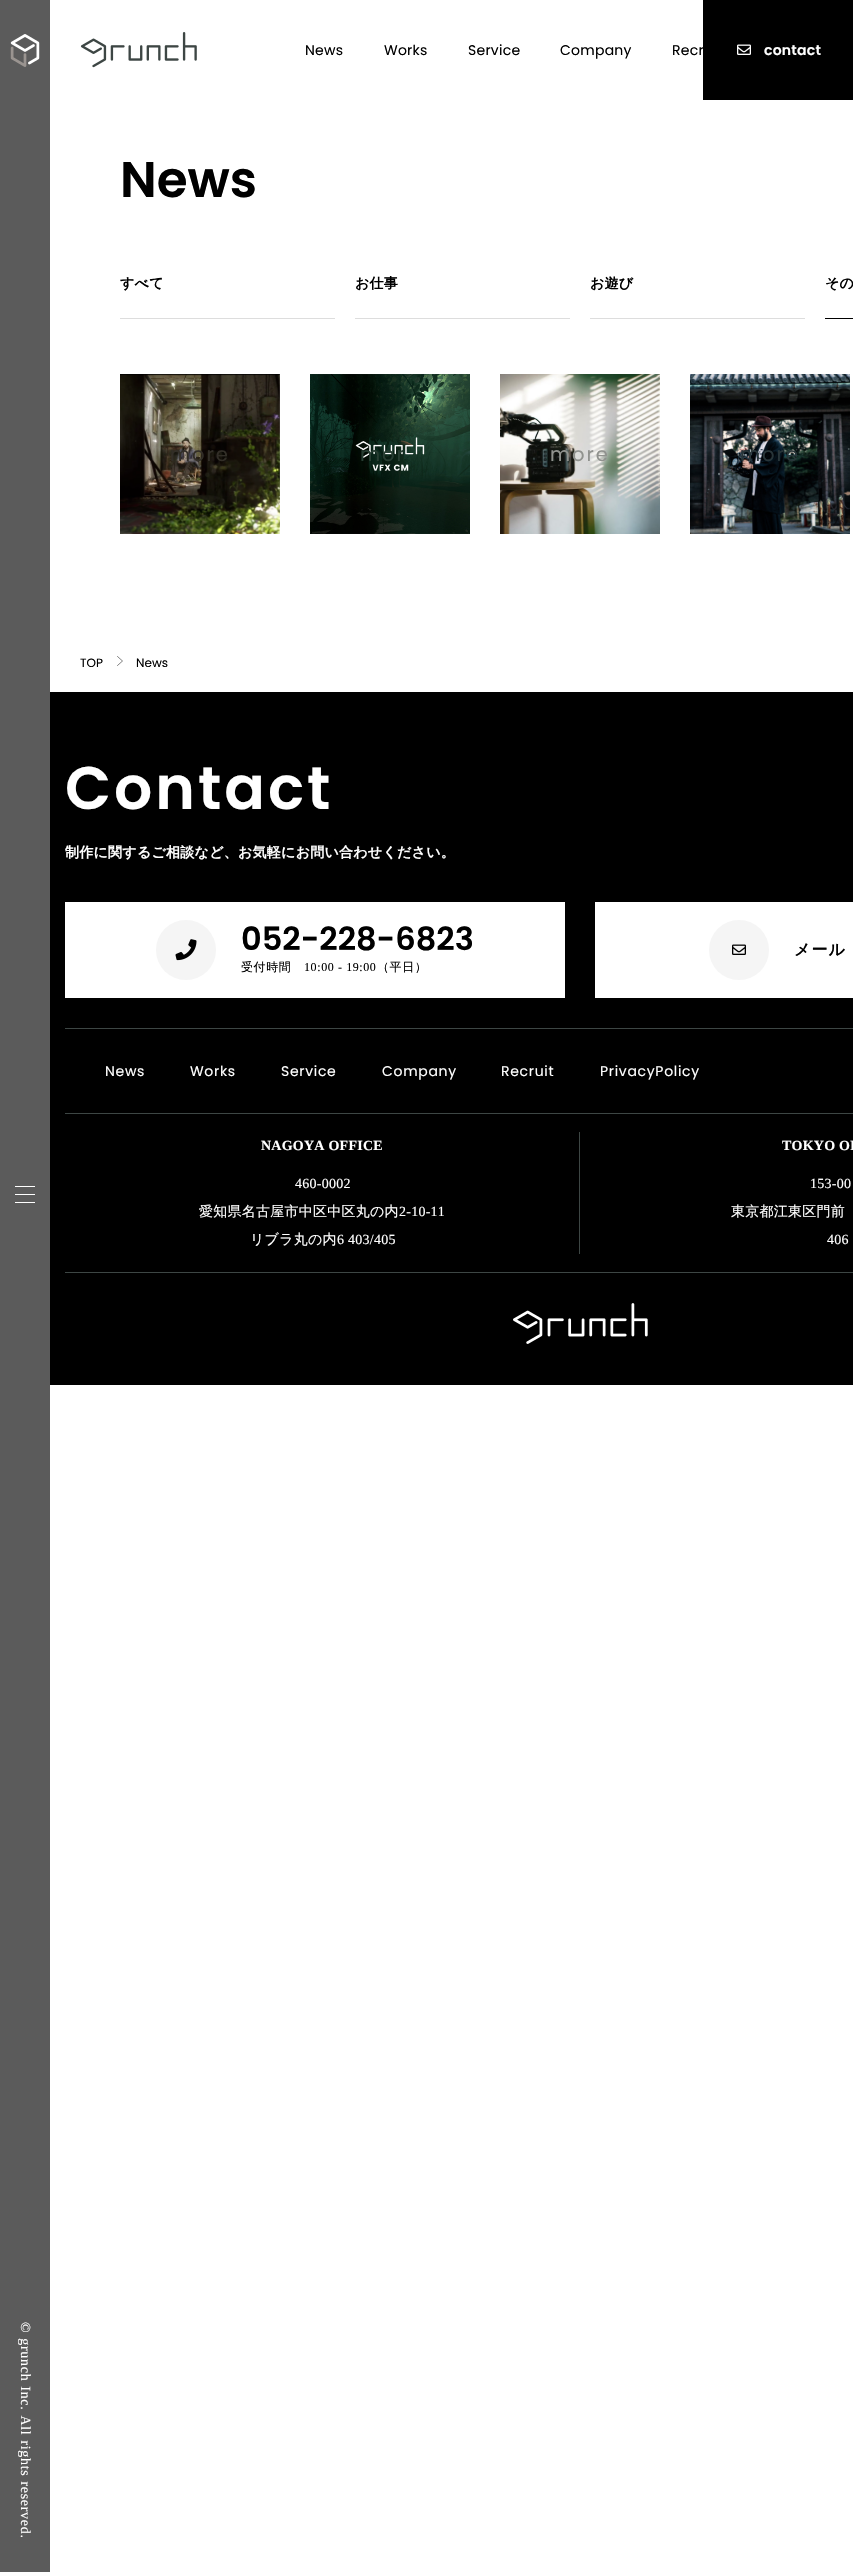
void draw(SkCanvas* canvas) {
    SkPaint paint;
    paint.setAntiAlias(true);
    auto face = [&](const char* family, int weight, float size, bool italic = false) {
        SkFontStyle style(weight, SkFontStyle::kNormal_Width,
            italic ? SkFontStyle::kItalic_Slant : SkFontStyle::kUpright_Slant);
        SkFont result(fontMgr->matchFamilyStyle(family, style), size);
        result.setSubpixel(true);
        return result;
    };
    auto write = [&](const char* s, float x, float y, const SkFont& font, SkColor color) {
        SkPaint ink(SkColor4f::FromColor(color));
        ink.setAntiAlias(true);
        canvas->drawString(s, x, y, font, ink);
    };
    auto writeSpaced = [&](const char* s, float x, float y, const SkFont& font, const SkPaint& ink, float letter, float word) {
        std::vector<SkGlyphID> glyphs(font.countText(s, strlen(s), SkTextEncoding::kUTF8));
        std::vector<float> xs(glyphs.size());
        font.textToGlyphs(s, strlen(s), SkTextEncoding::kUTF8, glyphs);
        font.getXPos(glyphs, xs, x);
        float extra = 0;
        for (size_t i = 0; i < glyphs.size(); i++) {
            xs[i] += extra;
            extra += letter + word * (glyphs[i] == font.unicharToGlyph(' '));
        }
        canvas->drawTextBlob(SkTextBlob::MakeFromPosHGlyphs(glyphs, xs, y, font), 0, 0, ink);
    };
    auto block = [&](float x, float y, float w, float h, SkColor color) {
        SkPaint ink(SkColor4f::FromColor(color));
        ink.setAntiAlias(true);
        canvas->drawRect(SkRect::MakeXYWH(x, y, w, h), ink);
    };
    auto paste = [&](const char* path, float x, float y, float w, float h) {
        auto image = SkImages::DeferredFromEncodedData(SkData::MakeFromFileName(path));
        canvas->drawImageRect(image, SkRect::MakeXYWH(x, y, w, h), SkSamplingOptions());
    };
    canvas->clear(SK_ColorWHITE);
    paste("pic1.png", 80, 32, 117, 36);
    auto kFont1 = face("Poppins", 400, 14);
    paint.setColor(SK_ColorBLACK);
    writeSpaced("News", 305, 55, kFont1, paint, 0.25f, 0);
    writeSpaced("Works", 384, 55, kFont1, paint, 0.25f, 0);
    writeSpaced("Service", 468, 55, kFont1, paint, 0.25f, 0);
    writeSpaced("Company", 560, 55, kFont1, paint, 0.25f, 0);
    writeSpaced("Recr", 672, 55, kFont1, paint, 0.25f, 0);
    block(703, 0, 150, 100, SK_ColorBLACK);
    paste("pic2.png", 737, 44, 14, 11);
    auto kFont2 = face("Poppins", 600, 14);
    paint.setColor(SK_ColorWHITE);
    writeSpaced("contact", 764, 55, kFont2, paint, 0.25f, 0);
    auto kFont3 = face("Poppins", 600, 50);
    write("News", 120, 197, kFont3, SK_ColorBLACK);
    block(120, 318, 215, 1, SkColorSetRGB(221, 221, 221));
    auto kFont4 = face("WenQuanYi Zen Hei", 700, 14);
    paint.setColor(SK_ColorBLACK);
    writeSpaced("すべて", 120, 288, kFont4, paint, 0.25f, 0);
    block(355, 318, 215, 1, SkColorSetRGB(221, 221, 221));
    writeSpaced("お仕事", 355, 288, kFont4, paint, 0.25f, 0);
    block(590, 318, 215, 1, SkColorSetRGB(221, 221, 221));
    writeSpaced("お遊び", 590, 288, kFont4, paint, 0.25f, 0);
    writeSpaced("その", 825, 288, kFont4, paint, 0.25f, 0);
    block(825, 318, 28, 1, SK_ColorBLACK);
    paste("pic3.png", 120, 374, 160, 160);
    auto kFont5 = face("Poppins", 400, 19.5f);
    paint.setColor(SkColorSetRGB(50, 46, 39));
    writeSpaced("more", 170, 461, kFont5, paint, 2, 0);
    paste("pic4.png", 310, 374, 160, 160);
    paint.setColor(SkColorSetRGB(39, 61, 50));
    writeSpaced("mor", 360, 461, kFont5, paint, 2, 0);
    paste("pic5.png", 500, 374, 160, 160);
    paint.setColor(SkColorSetRGB(144, 146, 142));
    writeSpaced("more", 550, 461, kFont5, paint, 2, 0);
    paste("pic6.png", 690, 374, 160, 160);
    paint.setColor(SkColorSetRGB(40, 53, 57));
    writeSpaced("more", 740, 461, kFont5, paint, 2, 0);
    auto kFont6 = face("Poppins", 400, 12);
    write("TOP", 80, 667, kFont6, SK_ColorBLACK);
    paint.setStyle(SkPaint::kStroke_Style);
    paint.setStrokeWidth(0.5f);
    paint.setStrokeCap(SkPaint::kRound_Cap);
    paint.setStrokeJoin(SkPaint::kRound_Join);
    paint.setColor(SK_ColorBLACK);
    canvas->drawPath(SkPathBuilder().moveTo(117.5f, 656.5f).lineTo(122.5f, 661).lineTo(117.5f, 665.5f).detach(), paint);
    write("News", 136, 667, kFont6, SK_ColorBLACK);
    block(50, 692, 803, 693, SK_ColorBLACK);
    auto kFont7 = face("Poppins", 600, 60);
    paint.setStyle(SkPaint::kFill_Style);
    paint.setColor(SK_ColorWHITE);
    writeSpaced("Contact", 65, 809, kFont7, paint, 3, 0);
    writeSpaced("制作に関するご相談など、お気軽にお問い合わせください。", 65, 857, kFont4, paint, 0.25f, 0);
    block(65, 902, 500, 96, SK_ColorWHITE);
    paint.setColor(SkColorSetRGB(245, 245, 245));
    canvas->drawCircle(186, 950, 30, paint);
    paste("pic7.png", 175, 939, 22, 22);
    auto kFont8 = face("Poppins", 600, 32);
    write("052-228-6823", 241, 950, kFont8, SK_ColorBLACK);
    auto kFont9 = face("WenQuanYi Zen Hei", 500, 12);
    paint.setColor(SK_ColorBLACK);
    writeSpaced("受付時間", 241, 971, kFont9, paint, 0.6f, 0);
    auto kFont10 = face("Liberation Serif", 400, 12);
    writeSpaced("10:00 - 19:00", 304, 971, kFont10, paint, 0.6f, 0);
    writeSpaced("（平日）", 377, 971, kFont9, paint, 0.6f, 0);
    block(595, 902, 258, 96, SK_ColorWHITE);
    paint.setColor(SkColorSetRGB(245, 245, 245));
    canvas->drawCircle(739, 950, 30, paint);
    paste("pic8.png", 732, 944, 14, 11);
    auto kFont11 = face("WenQuanYi Zen Hei", 700, 16);
    paint.setColor(SK_ColorBLACK);
    writeSpaced("メール", 794, 955, kFont11, paint, 1, 0);
    block(65, 1028, 788, 1, SkColorSetRGB(61, 70, 68));
    block(65, 1113, 788, 1, SkColorSetRGB(61, 70, 68));
    paint.setColor(SK_ColorWHITE);
    writeSpaced("News", 105, 1076, kFont1, paint, 0.7f, 0);
    writeSpaced("Works", 190, 1076, kFont1, paint, 0.7f, 0);
    writeSpaced("Service", 281, 1076, kFont1, paint, 0.7f, 0);
    writeSpaced("Company", 382, 1076, kFont1, paint, 0.7f, 0);
    writeSpaced("Recruit", 501, 1076, kFont1, paint, 0.7f, 0);
    writeSpaced("PrivacyPolicy", 600, 1076, kFont1, paint, 0.7f, 0);
    block(65, 1272, 788, 1, SkColorSetRGB(61, 70, 68));
    auto kFont12 = face("Liberation Serif", 700, 14);
    writeSpaced("NAGOYA OFFICE", 261, 1150, kFont12, paint, 0.25f, 0);
    block(579, 1132, 1, 122, SkColorSetRGB(61, 70, 68));
    auto kFont13 = face("Liberation Serif", 400, 14);
    writeSpaced("460-0002", 295, 1188, kFont13, paint, 0.25f, 0);
    auto kFont14 = face("WenQuanYi Zen Hei", 500, 14);
    writeSpaced("愛知県名古屋市中区中区丸の内", 199, 1216, kFont14, paint, 0.25f, 0);
    writeSpaced("2-10-11", 399, 1216, kFont13, paint, 0.25f, 0);
    writeSpaced("リブラ丸の内", 250, 1244, kFont14, paint, 0.25f, 0);
    writeSpaced("6 403/405", 337, 1244, kFont13, paint, 0.25f, 0);
    writeSpaced("TOKYO OF", 782, 1150, kFont12, paint, 0.25f, 0);
    writeSpaced("153-00", 810, 1188, kFont13, paint, 0.25f, 0);
    writeSpaced("東京都江東区門前", 731, 1216, kFont14, paint, 0.25f, 0);
    writeSpaced("406", 827, 1244, kFont13, paint, 0.25f, 0);
    paste("pic9.png", 513, 1303, 135, 41);
    block(0, 0, 50, 2572, SkColorSetRGB(91, 91, 91));
    paste("pic10.png", 10, 34, 30, 33);
    block(15, 1186, 20, 1, SK_ColorWHITE);
    block(15, 1194, 20, 1, SK_ColorWHITE);
    block(15, 1202, 20, 1, SK_ColorWHITE);
    canvas->save();
    canvas->rotate(90, 21, 2322);
    writeSpaced("© grunch Inc. All rights reserved.", 21, 2322, kFont13, paint, 0.7f, 0.75f);
    canvas->restore();
}
